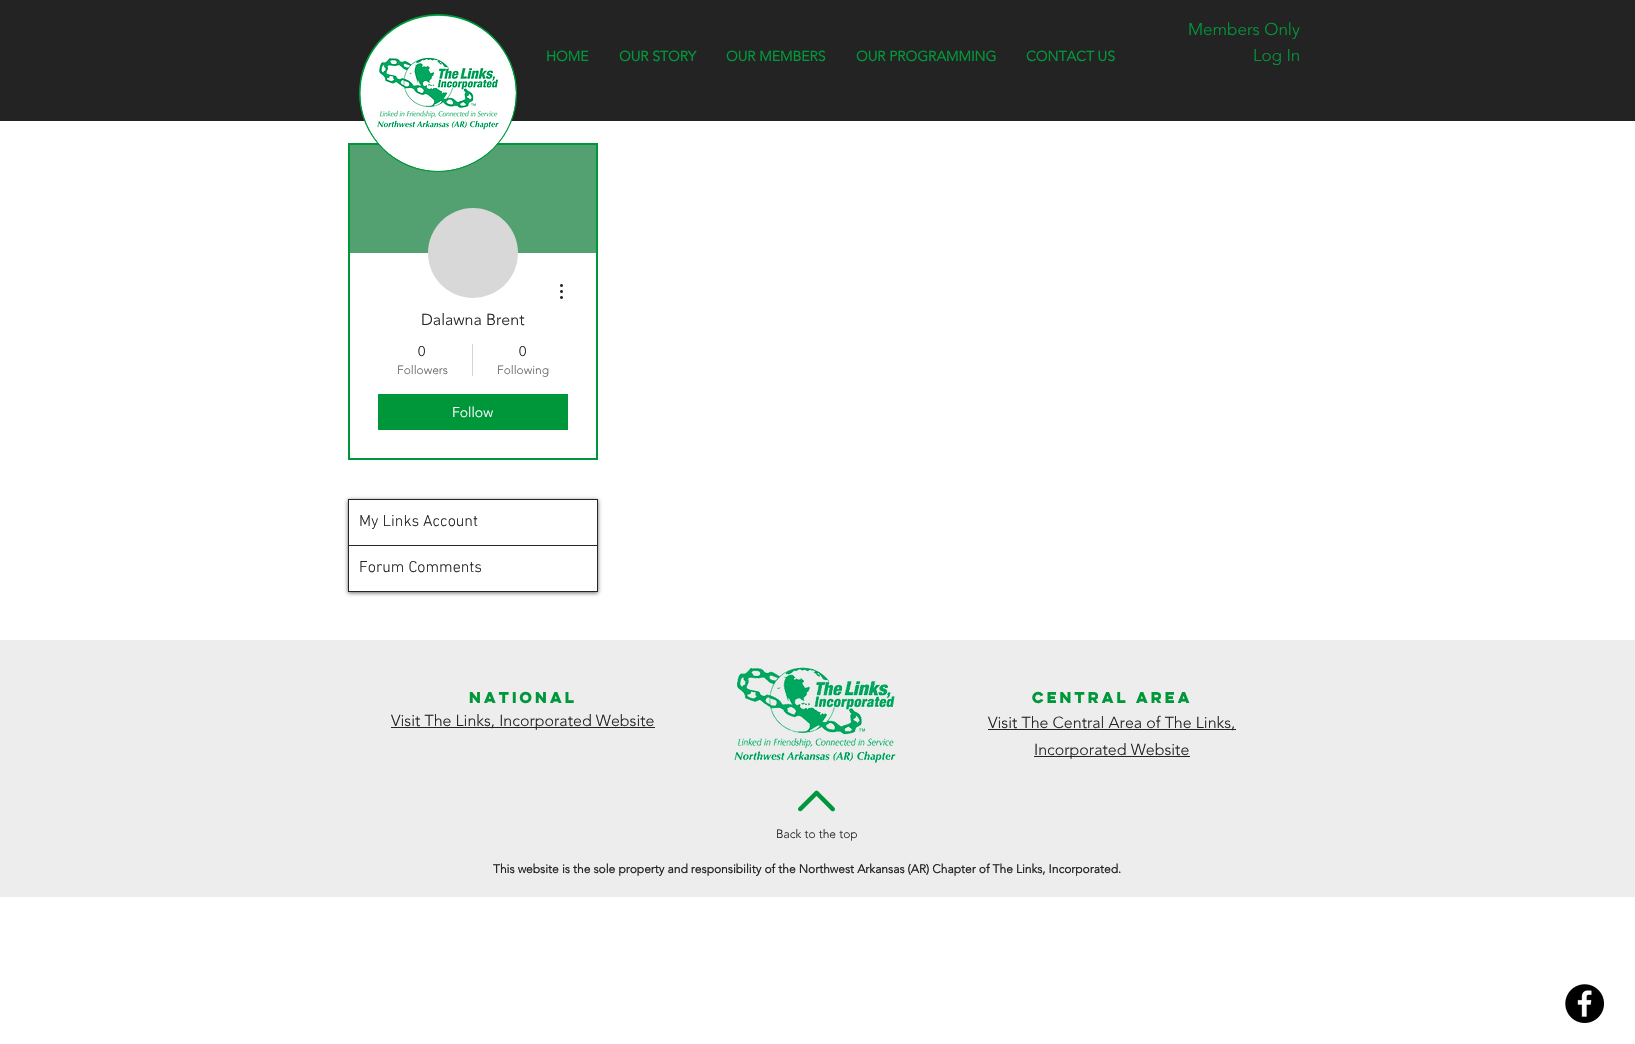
void draw(SkCanvas* canvas) {
    SkPaint paint;
    paint.setAntiAlias(true);
    auto face = [&](const char* family, int weight, float size, bool italic = false) {
        SkFontStyle style(weight, SkFontStyle::kNormal_Width,
            italic ? SkFontStyle::kItalic_Slant : SkFontStyle::kUpright_Slant);
        SkFont result(fontMgr->matchFamilyStyle(family, style), size);
        result.setSubpixel(true);
        return result;
    };
    auto write = [&](const char* s, float x, float y, const SkFont& font, SkColor color) {
        SkPaint ink(SkColor4f::FromColor(color));
        ink.setAntiAlias(true);
        canvas->drawString(s, x, y, font, ink);
    };
    auto block = [&](float x, float y, float w, float h, SkColor color) {
        SkPaint ink(SkColor4f::FromColor(color));
        ink.setAntiAlias(true);
        canvas->drawRect(SkRect::MakeXYWH(x, y, w, h), ink);
    };
    auto paste = [&](const char* path, float x, float y, float w, float h) {
        auto image = SkImages::DeferredFromEncodedData(SkData::MakeFromFileName(path));
        canvas->drawImageRect(image, SkRect::MakeXYWH(x, y, w, h), SkSamplingOptions());
    };
    canvas->clear(SK_ColorWHITE);
    block(0, 0, 1635, 121, SkColorSetRGB(36, 35, 35));
    block(350, 145, 246, 108, SkColorSetRGB(83, 160, 112));
    paint.setStyle(SkPaint::kStroke_Style);
    paint.setStrokeWidth(2);
    paint.setColor(SkColorSetRGB(0, 151, 58));
    canvas->drawRect(SkRect::MakeXYWH(349, 144, 248, 315), paint);
    paint.setStyle(SkPaint::kFill_Style);
    canvas->drawCircle(438, 93, 78.5f, paint);
    paint.setStyle(SkPaint::kStroke_Style);
    paint.setStrokeWidth(1);
    canvas->drawCircle(438, 93, 78.5f, paint);
    paste("pic1.png", 360, 15, 156, 156);
    auto kFont1 = face("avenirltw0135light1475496", 300, 17);
    write("Members Only", 1188, 35, kFont1, SkColorSetRGB(0, 151, 58));
    auto kFont2 = face("avenirltw0135light1475496", 700, 14);
    write("HOME", 546, 61, kFont2, SkColorSetRGB(0, 151, 58));
    write("OUR STORY", 619, 61, kFont2, SkColorSetRGB(0, 151, 58));
    write("OUR MEMBERS", 726, 61, kFont2, SkColorSetRGB(0, 151, 58));
    write("OUR PROGRAMMING", 856, 61, kFont2, SkColorSetRGB(0, 151, 58));
    write("CONTACT US", 1026, 61, kFont2, SkColorSetRGB(0, 151, 58));
    write("Log In", 1253, 61, kFont1, SkColorSetRGB(0, 151, 58));
    paint.setStyle(SkPaint::kFill_Style);
    paint.setColor(SkColorSetRGB(216, 216, 216));
    canvas->drawCircle(473, 253, 45, paint);
    paste("pic2.png", 560, 284, 3, 15);
    auto kFont3 = face("avenirltw0135light1475496", 300, 16);
    write("Dalawna Brent", 421, 325, kFont3, SkColorSetRGB(37, 37, 37));
    auto kFont4 = face("avenirltw0135light1475496", 300, 14);
    write("0", 418, 356, kFont4, SkColorSetRGB(37, 37, 37));
    auto kFont5 = face("avenirltw0135light1475496", 300, 12);
    write("Followers", 397, 374, kFont5, SkColorSetRGB(102, 102, 102));
    block(472, 344, 1, 32, SkColorSetRGB(211, 211, 211));
    write("0", 519, 356, kFont4, SkColorSetRGB(37, 37, 37));
    write("Following", 497, 374, kFont5, SkColorSetRGB(102, 102, 102));
    block(378, 394, 190, 36, SkColorSetRGB(0, 151, 58));
    write("Follow", 452, 417, kFont4, SK_ColorWHITE);
    canvas->save();
    canvas->clipPath(SkPathBuilder(SkPathFillType::kEvenOdd).moveTo(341, 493).lineTo(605, 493).lineTo(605, 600).lineTo(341, 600).close().moveTo(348, 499).lineTo(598, 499).lineTo(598, 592).lineTo(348, 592).close().detach(), true);
    paint.setColor(SkColorSetARGB(153, 0, 0, 0));
    paint.setMaskFilter(SkMaskFilter::MakeBlur(kNormal_SkBlurStyle, 2));
    canvas->drawRect(SkRect::MakeXYWH(348, 500, 250, 93), paint);
    paint.setMaskFilter(nullptr);
    canvas->restore();
    paint.setStyle(SkPaint::kStroke_Style);
    paint.setColor(SkColorSetRGB(37, 37, 37));
    canvas->drawRect(SkRect::MakeXYWH(348.5f, 499.5f, 249, 92), paint);
    block(349, 545, 248, 1, SkColorSetRGB(37, 37, 37));
    auto kFont6 = face("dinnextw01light", 300, 16);
    write("My Links Account", 359, 526, kFont6, SkColorSetRGB(37, 37, 37));
    write("Forum Comments", 359, 572, kFont6, SkColorSetRGB(37, 37, 37));
    block(0, 640, 1635, 257, SkColorSetRGB(237, 237, 237));
    auto kFont7 = face("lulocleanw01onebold", 700, 14);
    write("National", 469, 703, kFont7, SkColorSetRGB(0, 151, 58));
    block(391, 727, 264, 1, SkColorSetRGB(37, 37, 37));
    write("Visit The Links, Incorporated Website", 391, 726, kFont3, SkColorSetRGB(37, 37, 37));
    paste("pic3.png", 734, 667, 162, 96);
    write("Central Area", 1032, 703, kFont7, SkColorSetRGB(0, 151, 58));
    block(988, 729, 248, 1, SkColorSetRGB(37, 37, 37));
    write("Visit The Central Area of The Links,", 988, 728, kFont3, SkColorSetRGB(37, 37, 37));
    block(1034, 756, 156, 1, SkColorSetRGB(37, 37, 37));
    write("Incorporated Website", 1034, 755, kFont3, SkColorSetRGB(37, 37, 37));
    paste("pic4.png", 798, 790, 37, 22);
    write("Back to the top", 776, 838, kFont5, SkColorSetRGB(37, 37, 37));
    auto kFont8 = face("avenirltw0135light1475496", 700, 12);
    write("This website is the sole property and responsibility of the Northwest Arkansas (AR) Chapter of The Links, Incorporated.", 493, 873, kFont8, SkColorSetRGB(37, 37, 37));
    paste("pic5.png", 1565, 984, 39, 39);
}
